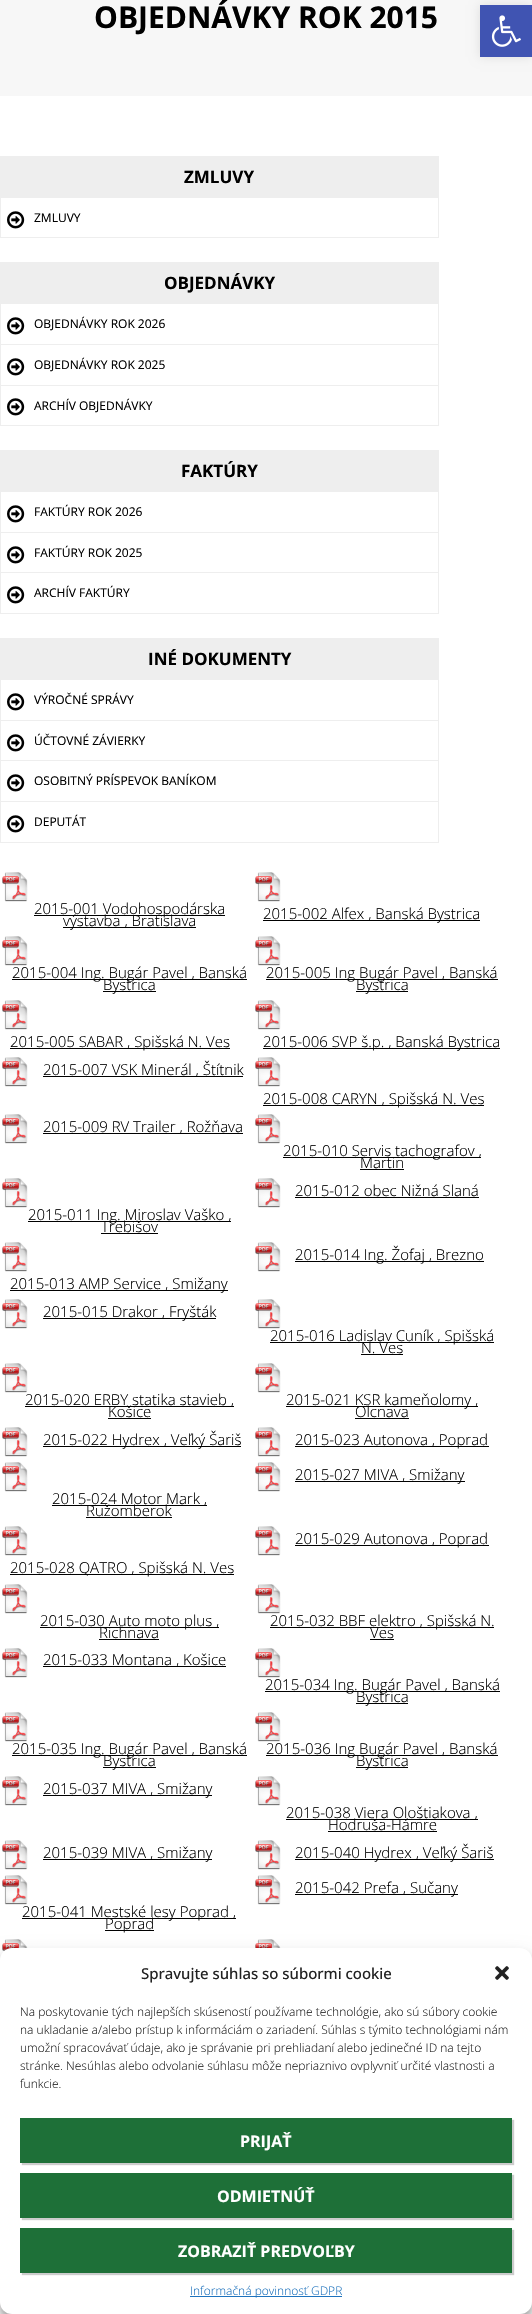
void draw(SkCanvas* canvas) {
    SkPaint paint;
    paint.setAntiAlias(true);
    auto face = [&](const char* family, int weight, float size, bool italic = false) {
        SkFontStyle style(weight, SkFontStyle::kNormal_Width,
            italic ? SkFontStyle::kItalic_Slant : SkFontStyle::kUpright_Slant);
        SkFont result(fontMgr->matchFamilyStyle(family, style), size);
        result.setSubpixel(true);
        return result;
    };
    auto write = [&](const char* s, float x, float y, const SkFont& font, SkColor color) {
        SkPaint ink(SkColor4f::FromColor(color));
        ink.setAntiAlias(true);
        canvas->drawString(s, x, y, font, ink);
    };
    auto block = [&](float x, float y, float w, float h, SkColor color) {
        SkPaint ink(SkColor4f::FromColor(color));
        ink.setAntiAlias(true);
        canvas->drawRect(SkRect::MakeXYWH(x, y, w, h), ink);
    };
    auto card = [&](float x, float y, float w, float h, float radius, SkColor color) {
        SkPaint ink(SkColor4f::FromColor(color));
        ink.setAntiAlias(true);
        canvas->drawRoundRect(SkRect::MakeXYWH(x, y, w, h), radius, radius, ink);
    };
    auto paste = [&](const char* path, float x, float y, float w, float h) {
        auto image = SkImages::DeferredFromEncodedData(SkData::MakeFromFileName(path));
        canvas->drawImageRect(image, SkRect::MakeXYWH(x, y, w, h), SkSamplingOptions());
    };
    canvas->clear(SK_ColorWHITE);
    block(0, 0, 532, 96, SkColorSetRGB(247, 247, 247));
    auto kFont1 = face("Open Sans", 700, 30);
    write("OBJEDNÁVKY ROK 2015", 94, 28, kFont1, SK_ColorBLACK);
    block(0, 156, 439, 41, SkColorSetRGB(238, 238, 238));
    auto kFont2 = face("Open Sans", 700, 17);
    write("ZMLUVY", 184, 183, kFont2, SK_ColorBLACK);
    paint.setStyle(SkPaint::kStroke_Style);
    paint.setStrokeWidth(1);
    paint.setColor(SkColorSetRGB(238, 238, 238));
    canvas->drawRect(SkRect::MakeXYWH(0.5f, 197.5f, 438, 40), paint);
    paste("pic1.png", 7, 211, 18, 18);
    auto kFont3 = face("Open Sans", 400, 12);
    write("ZMLUVY", 34, 222, kFont3, SK_ColorBLACK);
    block(0, 262, 439, 41, SkColorSetRGB(238, 238, 238));
    write("OBJEDNÁVKY", 164, 289, kFont2, SK_ColorBLACK);
    canvas->drawRect(SkRect::MakeXYWH(0.5f, 303.5f, 438, 41), paint);
    paste("pic1.png", 7, 317, 18, 18);
    write("OBJEDNÁVKY ROK 2026", 34, 328, kFont3, SK_ColorBLACK);
    canvas->drawRect(SkRect::MakeXYWH(0.5f, 344.5f, 438, 41), paint);
    paste("pic1.png", 7, 358, 18, 18);
    write("OBJEDNÁVKY ROK 2025", 34, 369, kFont3, SK_ColorBLACK);
    canvas->drawRect(SkRect::MakeXYWH(0.5f, 385.5f, 438, 40), paint);
    paste("pic1.png", 7, 398, 18, 18);
    write("ARCHÍV OBJEDNÁVKY", 34, 410, kFont3, SK_ColorBLACK);
    block(0, 450, 439, 41, SkColorSetRGB(238, 238, 238));
    write("FAKTÚRY", 181, 477, kFont2, SK_ColorBLACK);
    canvas->drawRect(SkRect::MakeXYWH(0.5f, 491.5f, 438, 41), paint);
    paste("pic1.png", 7, 505, 18, 18);
    write("FAKTÚRY ROK 2026", 34, 516, kFont3, SK_ColorBLACK);
    canvas->drawRect(SkRect::MakeXYWH(0.5f, 532.5f, 438, 40), paint);
    paste("pic1.png", 7, 546, 18, 18);
    write("FAKTÚRY ROK 2025", 34, 557, kFont3, SK_ColorBLACK);
    canvas->drawRect(SkRect::MakeXYWH(0.5f, 572.5f, 438, 41), paint);
    paste("pic1.png", 7, 586, 18, 18);
    write("ARCHÍV FAKTÚRY", 34, 597, kFont3, SK_ColorBLACK);
    block(0, 638, 439, 41, SkColorSetRGB(238, 238, 238));
    write("INÉ DOKUMENTY", 148, 665, kFont2, SK_ColorBLACK);
    canvas->drawRect(SkRect::MakeXYWH(0.5f, 679.5f, 438, 41), paint);
    paste("pic1.png", 7, 693, 18, 18);
    write("VÝROČNÉ SPRÁVY", 34, 704, kFont3, SK_ColorBLACK);
    canvas->drawRect(SkRect::MakeXYWH(0.5f, 720.5f, 438, 40), paint);
    paste("pic1.png", 7, 734, 18, 18);
    write("ÚČTOVNÉ ZÁVIERKY", 34, 745, kFont3, SK_ColorBLACK);
    canvas->drawRect(SkRect::MakeXYWH(0.5f, 760.5f, 438, 41), paint);
    paste("pic1.png", 7, 774, 18, 18);
    write("OSOBITNÝ PRÍSPEVOK BANÍKOM", 34, 785, kFont3, SK_ColorBLACK);
    canvas->drawRect(SkRect::MakeXYWH(0.5f, 801.5f, 438, 41), paint);
    paste("pic1.png", 7, 815, 18, 18);
    write("DEPUTÁT", 34, 826, kFont3, SK_ColorBLACK);
    paste("pic2.png", 2, 872, 26, 30);
    block(34, 915, 191, 1, SK_ColorBLACK);
    auto kFont4 = face("Open Sans", 300, 15);
    write("2015-001 Vodohospodárska", 34, 914, kFont4, SK_ColorBLACK);
    block(63, 927, 133, 1, SK_ColorBLACK);
    write("výstavba , Bratislava", 63, 926, kFont4, SK_ColorBLACK);
    paste("pic2.png", 255, 872, 26, 30);
    block(263, 920, 217, 1, SK_ColorBLACK);
    write("2015-002 Alfex , Banská Bystrica", 263, 919, kFont4, SK_ColorBLACK);
    paste("pic2.png", 2, 936, 26, 30);
    block(12, 979, 235, 1, SK_ColorBLACK);
    write("2015-004 Ing. Bugár Pavel , Banská", 12, 978, kFont4, SK_ColorBLACK);
    block(103, 991, 53, 1, SK_ColorBLACK);
    write("Bystrica", 103, 990, kFont4, SK_ColorBLACK);
    paste("pic2.png", 255, 936, 26, 30);
    block(266, 979, 232, 1, SK_ColorBLACK);
    write("2015-005 Ing Bugár Pavel , Banská", 266, 978, kFont4, SK_ColorBLACK);
    block(356, 991, 52, 1, SK_ColorBLACK);
    write("Bystrica", 356, 990, kFont4, SK_ColorBLACK);
    paste("pic2.png", 2, 1000, 26, 30);
    block(10, 1048, 220, 1, SK_ColorBLACK);
    write("2015-005 SABAR , Spišská N. Ves", 10, 1047, kFont4, SK_ColorBLACK);
    paste("pic2.png", 255, 1000, 26, 30);
    block(263, 1048, 237, 1, SK_ColorBLACK);
    write("2015-006 SVP š.p. , Banská Bystrica", 263, 1047, kFont4, SK_ColorBLACK);
    paste("pic2.png", 2, 1057, 26, 30);
    block(43, 1076, 200, 1, SK_ColorBLACK);
    write("2015-007 VSK Minerál , Štítnik", 43, 1075, kFont4, SK_ColorBLACK);
    paste("pic2.png", 255, 1057, 26, 30);
    block(263, 1105, 221, 1, SK_ColorBLACK);
    write("2015-008 CARYN , Spišská N. Ves", 263, 1104, kFont4, SK_ColorBLACK);
    paste("pic2.png", 2, 1114, 26, 30);
    block(43, 1133, 200, 1, SK_ColorBLACK);
    write("2015-009 RV Trailer , Rožňava", 43, 1132, kFont4, SK_ColorBLACK);
    paste("pic2.png", 255, 1114, 26, 30);
    block(283, 1157, 198, 1, SK_ColorBLACK);
    write("2015-010 Servis tachografov ,", 283, 1156, kFont4, SK_ColorBLACK);
    write("Martin", 360, 1168, kFont4, SK_ColorBLACK);
    block(360, 1169, 44, 1, SK_ColorBLACK);
    paste("pic2.png", 255, 1178, 26, 30);
    write("2015-012 obec Nižná Slaná", 295, 1196, kFont4, SK_ColorBLACK);
    block(295, 1197, 184, 1, SK_ColorBLACK);
    paste("pic2.png", 2, 1178, 26, 30);
    block(28, 1221, 203, 1, SK_ColorBLACK);
    write("2015-011 Ing. Miroslav Vaško ,", 28, 1220, kFont4, SK_ColorBLACK);
    write("Trebišov", 101, 1232, kFont4, SK_ColorBLACK);
    block(101, 1233, 57, 1, SK_ColorBLACK);
    paste("pic2.png", 255, 1242, 26, 30);
    block(295, 1261, 189, 1, SK_ColorBLACK);
    write("2015-014 Ing. Žofaj , Brezno", 295, 1260, kFont4, SK_ColorBLACK);
    paste("pic2.png", 2, 1242, 26, 30);
    block(10, 1290, 218, 1, SK_ColorBLACK);
    write("2015-013 AMP Service , Smižany", 10, 1289, kFont4, SK_ColorBLACK);
    paste("pic2.png", 2, 1299, 26, 30);
    block(43, 1318, 173, 1, SK_ColorBLACK);
    write("2015-015 Drakor , Fryšták", 43, 1317, kFont4, SK_ColorBLACK);
    paste("pic2.png", 255, 1299, 26, 30);
    block(270, 1342, 224, 1, SK_ColorBLACK);
    write("2015-016 Ladislav Cuník , Spišská", 270, 1341, kFont4, SK_ColorBLACK);
    write("N. Ves", 361, 1353, kFont4, SK_ColorBLACK);
    block(361, 1354, 42, 1, SK_ColorBLACK);
    paste("pic2.png", 2, 1363, 26, 30);
    block(25, 1406, 209, 1, SK_ColorBLACK);
    write("2015-020 ERBY statika stavieb ,", 25, 1405, kFont4, SK_ColorBLACK);
    write("Košice", 108, 1417, kFont4, SK_ColorBLACK);
    block(108, 1418, 43, 1, SK_ColorBLACK);
    paste("pic2.png", 255, 1363, 26, 30);
    block(286, 1406, 192, 1, SK_ColorBLACK);
    write("2015-021 KSR kameňolomy ,", 286, 1405, kFont4, SK_ColorBLACK);
    write("Olcnava", 355, 1417, kFont4, SK_ColorBLACK);
    block(355, 1418, 54, 1, SK_ColorBLACK);
    paste("pic2.png", 2, 1427, 26, 30);
    block(43, 1446, 198, 1, SK_ColorBLACK);
    write("2015-022 Hydrex , Veľký Šariš", 43, 1445, kFont4, SK_ColorBLACK);
    paste("pic2.png", 255, 1427, 26, 30);
    block(295, 1446, 194, 1, SK_ColorBLACK);
    write("2015-023 Autonova , Poprad", 295, 1445, kFont4, SK_ColorBLACK);
    paste("pic2.png", 255, 1462, 26, 30);
    block(295, 1481, 170, 1, SK_ColorBLACK);
    write("2015-027 MIVA , Smižany", 295, 1480, kFont4, SK_ColorBLACK);
    paste("pic2.png", 2, 1462, 26, 30);
    block(52, 1505, 155, 1, SK_ColorBLACK);
    write("2015-024 Motor Mark ,", 52, 1504, kFont4, SK_ColorBLACK);
    write("Ružomberok", 86, 1516, kFont4, SK_ColorBLACK);
    block(86, 1517, 86, 1, SK_ColorBLACK);
    paste("pic2.png", 255, 1526, 26, 30);
    block(295, 1545, 194, 1, SK_ColorBLACK);
    write("2015-029 Autonova , Poprad", 295, 1544, kFont4, SK_ColorBLACK);
    paste("pic2.png", 2, 1526, 26, 30);
    block(10, 1574, 224, 1, SK_ColorBLACK);
    write("2015-028 QATRO , Spišská N. Ves", 10, 1573, kFont4, SK_ColorBLACK);
    paste("pic2.png", 2, 1584, 26, 30);
    block(40, 1627, 179, 1, SK_ColorBLACK);
    write("2015-030 Auto moto plus ,", 40, 1626, kFont4, SK_ColorBLACK);
    write("Richnava", 99, 1638, kFont4, SK_ColorBLACK);
    block(99, 1639, 60, 1, SK_ColorBLACK);
    paste("pic2.png", 255, 1584, 26, 30);
    block(270, 1627, 224, 1, SK_ColorBLACK);
    write("2015-032 BBF elektro , Spišská N.", 270, 1626, kFont4, SK_ColorBLACK);
    write("Ves", 370, 1638, kFont4, SK_ColorBLACK);
    block(370, 1639, 24, 1, SK_ColorBLACK);
    paste("pic2.png", 2, 1648, 26, 30);
    block(43, 1666, 183, 1, SK_ColorBLACK);
    write("2015-033 Montana , Košice", 43, 1665, kFont4, SK_ColorBLACK);
    paste("pic2.png", 255, 1648, 26, 30);
    block(265, 1691, 235, 1, SK_ColorBLACK);
    write("2015-034 Ing. Bugár Pavel , Banská", 265, 1690, kFont4, SK_ColorBLACK);
    block(356, 1703, 52, 1, SK_ColorBLACK);
    write("Bystrica", 356, 1702, kFont4, SK_ColorBLACK);
    paste("pic2.png", 2, 1712, 26, 30);
    block(12, 1755, 235, 1, SK_ColorBLACK);
    write("2015-035 Ing. Bugár Pavel , Banská", 12, 1754, kFont4, SK_ColorBLACK);
    block(103, 1767, 53, 1, SK_ColorBLACK);
    write("Bystrica", 103, 1766, kFont4, SK_ColorBLACK);
    paste("pic2.png", 255, 1712, 26, 30);
    block(266, 1755, 232, 1, SK_ColorBLACK);
    write("2015-036 Ing Bugár Pavel , Banská", 266, 1754, kFont4, SK_ColorBLACK);
    block(356, 1767, 52, 1, SK_ColorBLACK);
    write("Bystrica", 356, 1766, kFont4, SK_ColorBLACK);
    paste("pic2.png", 2, 1776, 26, 30);
    block(43, 1795, 169, 1, SK_ColorBLACK);
    write("2015-037 MIVA , Smižany", 43, 1794, kFont4, SK_ColorBLACK);
    paste("pic2.png", 255, 1776, 26, 30);
    block(286, 1819, 192, 1, SK_ColorBLACK);
    write("2015-038 Viera Ološtiakova ,", 286, 1818, kFont4, SK_ColorBLACK);
    write("Hodruša-Hámre", 328, 1830, kFont4, SK_ColorBLACK);
    block(328, 1831, 109, 1, SK_ColorBLACK);
    paste("pic2.png", 2, 1840, 26, 30);
    block(43, 1859, 169, 1, SK_ColorBLACK);
    write("2015-039 MIVA , Smižany", 43, 1858, kFont4, SK_ColorBLACK);
    paste("pic2.png", 255, 1840, 26, 30);
    block(295, 1859, 199, 1, SK_ColorBLACK);
    write("2015-040 Hydrex , Veľký Šariš", 295, 1858, kFont4, SK_ColorBLACK);
    paste("pic2.png", 255, 1875, 26, 30);
    block(295, 1894, 163, 1, SK_ColorBLACK);
    write("2015-042 Prefa , Sučany", 295, 1893, kFont4, SK_ColorBLACK);
    paste("pic2.png", 2, 1875, 26, 30);
    block(22, 1918, 214, 1, SK_ColorBLACK);
    write("2015-041 Mestské lesy Poprad ,", 22, 1917, kFont4, SK_ColorBLACK);
    block(105, 1930, 49, 1, SK_ColorBLACK);
    write("Poprad", 105, 1929, kFont4, SK_ColorBLACK);
    paste("pic3.png", 2, 1939, 26, 13);
    paste("pic4.png", 255, 1939, 26, 9);
    paint.setStyle(SkPaint::kFill_Style);
    paint.setColor(SkColorSetARGB(26, 0, 0, 0));
    paint.setMaskFilter(SkMaskFilter::MakeBlur(kNormal_SkBlurStyle, 5));
    canvas->drawRect(SkRect::MakeXYWH(480, 5, 52, 52), paint);
    paint.setMaskFilter(nullptr);
    block(480, 5, 52, 52, SkColorSetRGB(64, 84, 178));
    paste("pic5.png", 491, 15, 30, 32);
    paint.setColor(SkColorSetARGB(59, 0, 0, 0));
    paint.setMaskFilter(SkMaskFilter::MakeBlur(kNormal_SkBlurStyle, 3));
    canvas->drawRoundRect(SkRect::MakeXYWH(0, 1954, 532, 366), 12, 12, paint);
    paint.setMaskFilter(nullptr);
    paint.setColor(SkColorSetARGB(48, 0, 0, 0));
    paint.setMaskFilter(SkMaskFilter::MakeBlur(kNormal_SkBlurStyle, 10));
    canvas->drawRoundRect(SkRect::MakeXYWH(0, 1958, 532, 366), 12, 12, paint);
    paint.setMaskFilter(nullptr);
    card(0, 1948, 532, 366, 12, SK_ColorWHITE);
    auto kFont5 = face("Open Sans", 500, 15);
    write("Spravujte súhlas so súbormi cookie", 141, 1979, kFont5, SkColorSetRGB(34, 34, 34));
    paste("pic6.png", 495, 1966, 14, 14);
    auto kFont6 = face("Open Sans", 300, 12);
    write("Na poskytovanie tých najlepších skúseností používame technológie, ako sú súbory cookie", 20, 2016, kFont6, SkColorSetRGB(34, 34, 34));
    write("na ukladanie a/alebo prístup k informáciám o zariadení. Súhlas s týmito technológiami nám", 20, 2034, kFont6, SkColorSetRGB(34, 34, 34));
    write("umožní spracovávať údaje, ako je správanie pri prehliadaní alebo jedinečné ID na tejto", 20, 2052, kFont6, SkColorSetRGB(34, 34, 34));
    write("stránke. Nesúhlas alebo odvolanie súhlasu môže nepriaznivo ovplyvniť určité vlastnosti a", 20, 2070, kFont6, SkColorSetRGB(34, 34, 34));
    write("funkcie.", 20, 2088, kFont6, SkColorSetRGB(34, 34, 34));
    paint.setColor(SkColorSetARGB(51, 0, 0, 0));
    paint.setMaskFilter(SkMaskFilter::MakeBlur(kNormal_SkBlurStyle, 0.5f));
    canvas->drawRect(SkRect::MakeXYWH(22, 2120, 492, 45), paint);
    paint.setMaskFilter(nullptr);
    block(20, 2118, 492, 45, SkColorSetRGB(30, 112, 56));
    auto kFont7 = face("Open Sans", 700, 16);
    write("PRIJAŤ", 240, 2147, kFont7, SK_ColorWHITE);
    paint.setMaskFilter(SkMaskFilter::MakeBlur(kNormal_SkBlurStyle, 0.5f));
    canvas->drawRect(SkRect::MakeXYWH(22, 2175, 492, 45), paint);
    paint.setMaskFilter(nullptr);
    block(20, 2173, 492, 45, SkColorSetRGB(30, 112, 56));
    write("ODMIETNÚŤ", 217, 2202, kFont7, SK_ColorWHITE);
    paint.setMaskFilter(SkMaskFilter::MakeBlur(kNormal_SkBlurStyle, 0.5f));
    canvas->drawRect(SkRect::MakeXYWH(22, 2230, 492, 45), paint);
    paint.setMaskFilter(nullptr);
    block(20, 2228, 492, 45, SkColorSetRGB(30, 112, 56));
    write("ZOBRAZIŤ PREDVOĽBY", 178, 2257, kFont7, SK_ColorWHITE);
    block(190, 2296, 152, 1, SkColorSetRGB(30, 115, 190));
    write("Informačná povinnosť GDPR", 190, 2295, kFont6, SkColorSetRGB(30, 115, 190));
}
